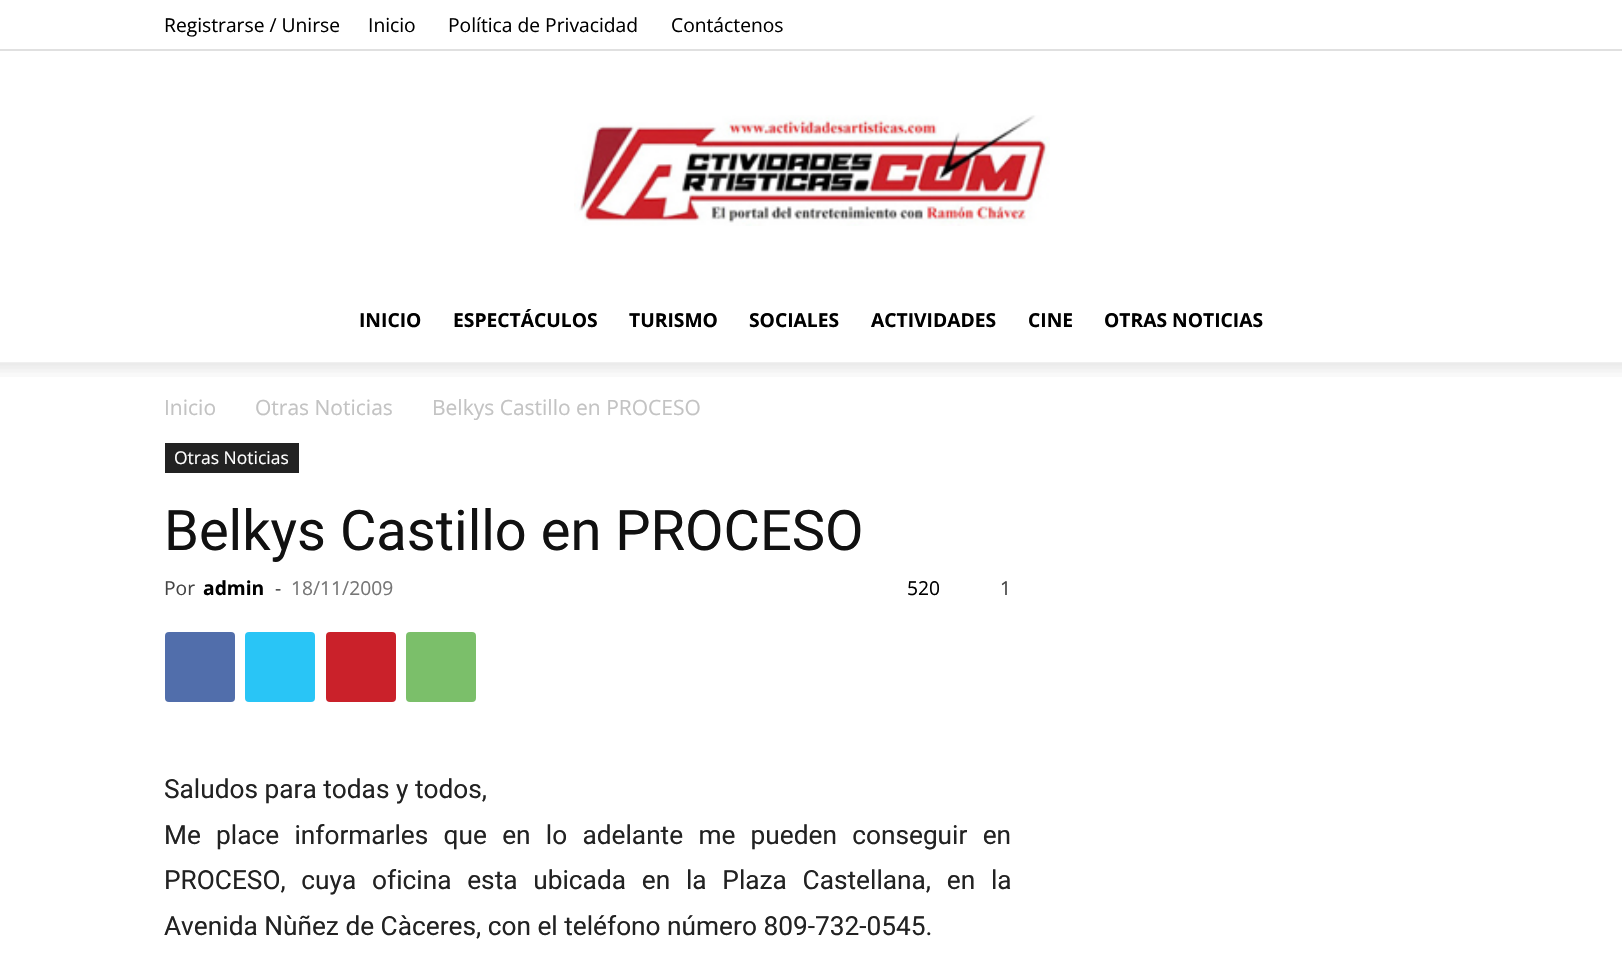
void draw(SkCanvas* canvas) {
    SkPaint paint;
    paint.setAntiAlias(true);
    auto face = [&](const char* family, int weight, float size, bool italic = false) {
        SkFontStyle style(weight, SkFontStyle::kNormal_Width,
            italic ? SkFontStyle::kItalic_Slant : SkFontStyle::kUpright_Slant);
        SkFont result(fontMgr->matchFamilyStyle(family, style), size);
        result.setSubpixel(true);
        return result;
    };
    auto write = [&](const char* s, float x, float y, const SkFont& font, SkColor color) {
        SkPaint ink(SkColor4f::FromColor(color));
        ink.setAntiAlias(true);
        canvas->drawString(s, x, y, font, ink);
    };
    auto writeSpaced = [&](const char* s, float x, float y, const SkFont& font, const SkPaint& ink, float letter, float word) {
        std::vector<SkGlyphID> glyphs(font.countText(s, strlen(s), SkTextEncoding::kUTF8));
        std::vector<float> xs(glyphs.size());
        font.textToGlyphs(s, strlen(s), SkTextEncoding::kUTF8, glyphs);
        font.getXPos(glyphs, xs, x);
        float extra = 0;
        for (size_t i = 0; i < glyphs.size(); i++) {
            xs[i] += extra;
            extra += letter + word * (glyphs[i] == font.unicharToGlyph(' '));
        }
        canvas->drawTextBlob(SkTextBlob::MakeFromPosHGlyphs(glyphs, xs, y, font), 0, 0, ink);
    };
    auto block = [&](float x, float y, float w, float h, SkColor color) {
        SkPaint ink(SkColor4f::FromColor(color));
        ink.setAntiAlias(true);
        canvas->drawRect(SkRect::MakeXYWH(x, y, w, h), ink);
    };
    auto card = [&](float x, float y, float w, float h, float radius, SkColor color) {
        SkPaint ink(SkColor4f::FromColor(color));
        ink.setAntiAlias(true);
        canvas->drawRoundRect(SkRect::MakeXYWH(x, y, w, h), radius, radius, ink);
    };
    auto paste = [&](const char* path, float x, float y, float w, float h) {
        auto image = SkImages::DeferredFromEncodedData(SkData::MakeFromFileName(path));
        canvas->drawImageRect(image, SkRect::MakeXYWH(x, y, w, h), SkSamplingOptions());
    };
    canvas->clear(SK_ColorWHITE);
    block(0, 49, 1622, 2, SkColorSetRGB(224, 224, 224));
    auto kFont1 = face("Open Sans", 400, 19.25f);
    write("Registrarse / Unirse", 164, 32, kFont1, SK_ColorBLACK);
    write("Inicio", 368, 32, kFont1, SK_ColorBLACK);
    write("Política de Privacidad", 448, 32, kFont1, SK_ColorBLACK);
    write("Contáctenos", 671, 32, kFont1, SK_ColorBLACK);
    paste("pic1.png", 574, 115, 476, 111);
    auto kFont2 = face("Open Sans", 700, 19.25f);
    write("INICIO", 359, 327, kFont2, SK_ColorBLACK);
    write("ESPECTÁCULOS", 453, 327, kFont2, SK_ColorBLACK);
    write("TURISMO", 629, 327, kFont2, SK_ColorBLACK);
    write("SOCIALES", 749, 327, kFont2, SK_ColorBLACK);
    write("ACTIVIDADES", 871, 327, kFont2, SK_ColorBLACK);
    write("CINE", 1028, 327, kFont2, SK_ColorBLACK);
    write("OTRAS NOTICIAS", 1104, 327, kFont2, SK_ColorBLACK);
    paste("pic2.png", 0, 362, 1622, 15);
    auto kFont3 = face("Open Sans", 400, 21);
    write("Inicio", 164, 415, kFont3, SkColorSetRGB(195, 195, 195));
    write("Otras Noticias", 255, 415, kFont3, SkColorSetRGB(195, 195, 195));
    write("Belkys Castillo en PROCESO", 432, 415, kFont3, SkColorSetRGB(195, 195, 195));
    block(165, 443, 134, 30, SkColorSetRGB(34, 34, 34));
    auto kFont4 = face("Open Sans", 400, 17.5f);
    write("Otras Noticias", 174, 464, kFont4, SK_ColorWHITE);
    auto kFont5 = face("Roboto", 400, 56);
    write("Belkys Castillo en PROCESO", 164, 550, kFont5, SkColorSetRGB(17, 17, 17));
    write("Por", 164, 595, kFont1, SkColorSetRGB(68, 68, 68));
    write("admin", 203, 595, kFont2, SK_ColorBLACK);
    write("-", 275, 595, kFont1, SkColorSetRGB(68, 68, 68));
    write("18/11/2009", 291, 595, kFont1, SkColorSetRGB(118, 118, 118));
    write("520", 907, 595, kFont1, SK_ColorBLACK);
    write("1", 1000, 595, kFont1, SkColorSetRGB(68, 68, 68));
    card(165, 632, 70, 70, 4, SkColorSetRGB(81, 110, 171));
    card(245, 632, 70, 70, 4, SkColorSetRGB(41, 197, 246));
    card(326, 632, 70, 70, 4, SkColorSetRGB(202, 33, 42));
    card(406, 632, 70, 70, 4, SkColorSetRGB(123, 191, 106));
    auto kFont6 = face("Roboto", 400, 26.25f);
    write("Saludos para todas y todos,", 164, 798, kFont6, SkColorSetRGB(34, 34, 34));
    paint.setColor(SkColorSetRGB(34, 34, 34));
    writeSpaced("Me place informarles que en lo adelante me pueden conseguir en", 164, 844, kFont6, paint, 0, 8.75f);
    writeSpaced("PROCESO, cuya oficina esta ubicada en la Plaza Castellana, en la", 164, 889, kFont6, paint, 0, 9.25f);
    write("Avenida Nùñez de Càceres, con el teléfono número 809-732-0545.", 164, 935, kFont6, SkColorSetRGB(34, 34, 34));
}
